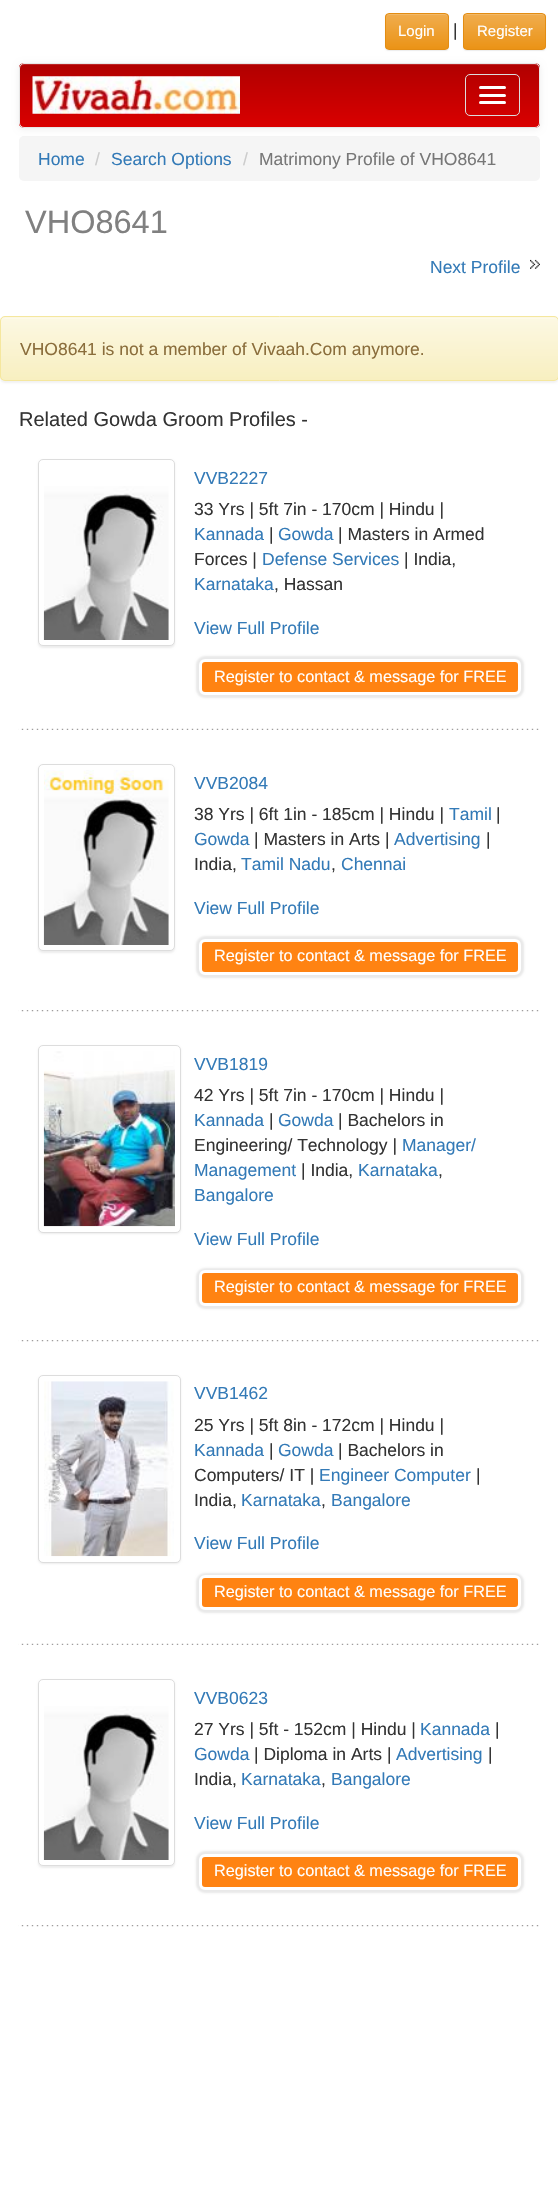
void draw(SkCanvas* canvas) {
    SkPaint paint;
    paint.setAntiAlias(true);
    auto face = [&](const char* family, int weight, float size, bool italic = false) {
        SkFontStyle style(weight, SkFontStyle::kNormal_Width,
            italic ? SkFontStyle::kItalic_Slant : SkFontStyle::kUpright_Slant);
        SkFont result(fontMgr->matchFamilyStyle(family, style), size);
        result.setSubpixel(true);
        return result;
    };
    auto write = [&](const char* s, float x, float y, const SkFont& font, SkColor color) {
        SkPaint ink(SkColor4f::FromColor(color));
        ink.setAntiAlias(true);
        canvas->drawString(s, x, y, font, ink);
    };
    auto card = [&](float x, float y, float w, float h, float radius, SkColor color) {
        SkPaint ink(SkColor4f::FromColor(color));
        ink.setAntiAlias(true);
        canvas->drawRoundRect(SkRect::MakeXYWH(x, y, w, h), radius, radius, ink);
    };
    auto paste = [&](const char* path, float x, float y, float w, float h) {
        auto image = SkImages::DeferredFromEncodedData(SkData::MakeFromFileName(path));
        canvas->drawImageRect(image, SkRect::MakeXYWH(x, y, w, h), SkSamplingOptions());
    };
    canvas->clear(SK_ColorWHITE);
    paint.setColor(SkColorSetARGB(18, 0, 0, 0));
    paint.setMaskFilter(SkMaskFilter::MakeBlur(kNormal_SkBlurStyle, 0.5f));
    canvas->drawRoundRect(SkRect::MakeXYWH(385, 14, 64, 37), 4, 4, paint);
    paint.setMaskFilter(nullptr);
    canvas->save();
    canvas->clipPath(SkPathBuilder().moveTo(389, 13).lineTo(445, 13).cubicTo(447, 13, 449, 15, 449, 17).lineTo(449, 46).cubicTo(449, 48, 447, 50, 445, 50).lineTo(389, 50).cubicTo(387, 50, 385, 48, 385, 46).lineTo(385, 17).cubicTo(385, 15, 387, 13, 389, 13).close().detach(), true);
    {
        const SkColor colors[] = {SkColorSetRGB(240, 173, 78), SkColorSetRGB(235, 147, 22)};
        const float stops[] = {0, 1};
        const SkPoint ends[] = {{417, 14}, {417, 49}};
        paint.setShader(SkGradientShader::MakeLinear(ends, colors, stops, 2, SkTileMode::kClamp));
        paint.setAlpha(255);
    }
    canvas->drawRect(SkRect::MakeXYWH(385, 14, 64, 35), paint);
    canvas->restore();
    paint.setShader(nullptr);
    paint.setColor(SkColorSetRGB(242, 185, 104));
    canvas->drawPath(SkPathBuilder().moveTo(389, 15).lineTo(445, 15).cubicTo(446, 15, 448, 16, 448, 18).cubicTo(448, 12, 442, 14, 436, 14).lineTo(398, 14).cubicTo(392, 14, 386, 12, 386, 18).cubicTo(386, 16, 387, 15, 389, 15).close().detach(), paint);
    paint.setStyle(SkPaint::kStroke_Style);
    paint.setStrokeWidth(1);
    paint.setColor(SkColorSetRGB(227, 141, 19));
    canvas->drawRoundRect(SkRect::MakeXYWH(385.5f, 13.5f, 63, 36), 3.5f, 3.5f, paint);
    auto kFont1 = face("Liberation Sans", 400, 15);
    write("Login", 398, 36, kFont1, SK_ColorWHITE);
    auto kFont2 = face("Liberation Sans", 400, 17.5f);
    write("|", 453, 36, kFont2, SkColorSetRGB(51, 51, 51));
    paint.setStyle(SkPaint::kFill_Style);
    paint.setColor(SkColorSetARGB(18, 0, 0, 0));
    paint.setMaskFilter(SkMaskFilter::MakeBlur(kNormal_SkBlurStyle, 0.5f));
    canvas->drawRoundRect(SkRect::MakeXYWH(463, 14, 83, 37), 4, 4, paint);
    paint.setMaskFilter(nullptr);
    canvas->save();
    canvas->clipPath(SkPathBuilder().moveTo(467, 13).lineTo(542, 13).cubicTo(544, 13, 546, 15, 546, 17).lineTo(546, 46).cubicTo(546, 48, 544, 50, 542, 50).lineTo(467, 50).cubicTo(465, 50, 463, 48, 463, 46).lineTo(463, 17).cubicTo(463, 15, 465, 13, 467, 13).close().detach(), true);
    {
        const SkColor colors[] = {SkColorSetRGB(240, 173, 78), SkColorSetRGB(235, 147, 22)};
        const float stops[] = {0, 1};
        const SkPoint ends[] = {{504, 14}, {504, 49}};
        paint.setShader(SkGradientShader::MakeLinear(ends, colors, stops, 2, SkTileMode::kClamp));
        paint.setAlpha(255);
    }
    canvas->drawRect(SkRect::MakeXYWH(463, 14, 83, 35), paint);
    canvas->restore();
    paint.setShader(nullptr);
    paint.setColor(SkColorSetRGB(242, 185, 104));
    canvas->drawPath(SkPathBuilder().moveTo(466, 15).lineTo(542, 15).cubicTo(544, 15, 545, 16, 545, 18).cubicTo(545, 11, 535, 14, 530, 14).lineTo(479, 14).cubicTo(474, 14, 464, 11, 464, 18).cubicTo(464, 16, 465, 15, 466, 15).close().detach(), paint);
    paint.setStyle(SkPaint::kStroke_Style);
    paint.setColor(SkColorSetRGB(227, 141, 19));
    canvas->drawRoundRect(SkRect::MakeXYWH(463.5f, 13.5f, 82, 36), 3.5f, 3.5f, paint);
    write("Register", 477, 36, kFont1, SK_ColorWHITE);
    card(19, 136, 521, 45, 5, SkColorSetRGB(245, 245, 245));
    paint.setStyle(SkPaint::kFill_Style);
    paint.setColor(SkColorSetARGB(18, 0, 0, 0));
    paint.setMaskFilter(SkMaskFilter::MakeBlur(kNormal_SkBlurStyle, 3));
    canvas->drawRoundRect(SkRect::MakeXYWH(19, 64, 521, 65), 5, 5, paint);
    paint.setMaskFilter(nullptr);
    card(19, 63, 521, 65, 5, SkColorSetRGB(217, 0, 0));
    canvas->save();
    canvas->clipPath(SkPathBuilder().moveTo(24, 63).lineTo(535, 63).cubicTo(538, 63, 540, 65, 540, 68).lineTo(540, 123).cubicTo(540, 126, 538, 128, 535, 128).lineTo(24, 128).cubicTo(21, 128, 19, 126, 19, 123).lineTo(19, 68).cubicTo(19, 65, 21, 63, 24, 63).close().detach(), true);
    {
        const SkColor colors[] = {SkColorSetRGB(176, 0, 0), SkColorSetRGB(217, 0, 0)};
        const float stops[] = {0, 1};
        const SkPoint ends[] = {{279, 64}, {279, 126}};
        paint.setShader(SkGradientShader::MakeLinear(ends, colors, stops, 2, SkTileMode::kClamp));
        paint.setAlpha(255);
    }
    canvas->drawRect(SkRect::MakeXYWH(19, 64, 521, 62), paint);
    canvas->restore();
    paint.setShader(nullptr);
    paint.setColor(SkColorSetRGB(188, 38, 38));
    canvas->drawPath(SkPathBuilder().moveTo(24, 65).lineTo(535, 65).cubicTo(537, 65, 539, 67, 539, 69).lineTo(539, 68).cubicTo(539, 66, 537, 64, 535, 64).lineTo(24, 64).cubicTo(22, 64, 20, 66, 20, 68).lineTo(20, 69).cubicTo(20, 67, 22, 65, 24, 65).close().detach(), paint);
    paint.setStyle(SkPaint::kStroke_Style);
    paint.setColor(SkColorSetRGB(231, 231, 231));
    canvas->drawRoundRect(SkRect::MakeXYWH(19.5f, 63.5f, 520, 64), 4.5f, 4.5f, paint);
    paste("pic1.png", 32, 76, 208, 38);
    paint.setColor(SkColorSetRGB(221, 221, 221));
    canvas->drawRoundRect(SkRect::MakeXYWH(465.5f, 74.5f, 54, 41), 4.5f, 4.5f, paint);
    card(479, 86, 27, 3, 1.5f, SK_ColorWHITE);
    card(479, 94, 27, 3, 1.5f, SK_ColorWHITE);
    card(479, 101, 27, 3, 1.5f, SK_ColorWHITE);
    write("Home", 38, 165, kFont2, SkColorSetRGB(51, 122, 183));
    write("/", 95, 165, kFont2, SkColorSetRGB(204, 204, 204));
    write("Search Options", 111, 165, kFont2, SkColorSetRGB(51, 122, 183));
    write("/", 243, 165, kFont2, SkColorSetRGB(204, 204, 204));
    write("Matrimony Profile of VHO8641", 259, 165, kFont2, SkColorSetRGB(119, 119, 119));
    auto kFont3 = face("Liberation Sans", 400, 32.5f);
    write("VHO8641", 25, 233, kFont3, SkColorSetRGB(128, 128, 128));
    write("Next Profile", 430, 273, kFont2, SkColorSetRGB(51, 122, 183));
    paste("pic2.png", 530, 259, 10, 10);
    paint.setStyle(SkPaint::kFill_Style);
    paint.setColor(SkColorSetARGB(13, 0, 0, 0));
    paint.setMaskFilter(SkMaskFilter::MakeBlur(kNormal_SkBlurStyle, 1));
    canvas->drawRoundRect(SkRect::MakeXYWH(0, 318, 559, 65), 5, 5, paint);
    paint.setMaskFilter(nullptr);
    card(0, 316, 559, 65, 5, SkColorSetRGB(252, 248, 227));
    canvas->save();
    canvas->clipPath(SkPathBuilder().moveTo(5, 316).lineTo(554, 316).cubicTo(557, 316, 559, 318, 559, 321).lineTo(559, 376).cubicTo(559, 379, 557, 381, 554, 381).lineTo(5, 381).cubicTo(2, 381, 0, 379, 0, 376).lineTo(0, 321).cubicTo(0, 318, 2, 316, 5, 316).close().detach(), true);
    {
        const SkColor colors[] = {SkColorSetRGB(252, 248, 227), SkColorSetRGB(248, 239, 192)};
        const float stops[] = {0, 1};
        const SkPoint ends[] = {{279, 317}, {279, 380}};
        paint.setShader(SkGradientShader::MakeLinear(ends, colors, stops, 2, SkTileMode::kClamp));
        paint.setAlpha(255);
    }
    canvas->drawRect(SkRect::MakeXYWH(0, 318, 558, 62), paint);
    canvas->restore();
    paint.setShader(nullptr);
    paint.setColor(SkColorSetRGB(253, 250, 233));
    canvas->drawPath(SkPathBuilder().moveTo(5, 319).lineTo(554, 319).cubicTo(556, 319, 558, 320, 558, 322).cubicTo(558, 320, 556, 318, 554, 318).lineTo(5, 318).cubicTo(3, 318, 1, 320, 1, 322).cubicTo(1, 320, 3, 319, 5, 319).close().detach(), paint);
    paint.setStyle(SkPaint::kStroke_Style);
    paint.setColor(SkColorSetRGB(245, 231, 158));
    canvas->drawRoundRect(SkRect::MakeXYWH(0.5f, 316.5f, 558, 64), 4.5f, 4.5f, paint);
    write("VHO8641 is not a member of Vivaah.Com anymore.", 20, 355, kFont2, SkColorSetRGB(138, 109, 59));
    auto kFont4 = face("Liberation Sans", 400, 20);
    write("Related Gowda Groom Profiles -", 19, 426, kFont4, SkColorSetRGB(51, 51, 51));
    paint.setStyle(SkPaint::kFill_Style);
    paint.setColor(SkColorSetARGB(18, 0, 0, 0));
    paint.setMaskFilter(SkMaskFilter::MakeBlur(kNormal_SkBlurStyle, 1));
    canvas->drawRoundRect(SkRect::MakeXYWH(38, 460, 137, 188), 5, 5, paint);
    paint.setMaskFilter(nullptr);
    paint.setColor(SK_ColorWHITE);
    canvas->drawRoundRect(SkRect::MakeXYWH(38.5f, 459.5f, 136, 186), 4.5f, 4.5f, paint);
    paint.setStyle(SkPaint::kStroke_Style);
    paint.setColor(SkColorSetRGB(221, 221, 221));
    canvas->drawRoundRect(SkRect::MakeXYWH(38.5f, 459.5f, 136, 186), 4.5f, 4.5f, paint);
    paste("pic3.png", 43, 486, 126, 154);
    write("VVB2227", 194, 484, kFont2, SkColorSetRGB(51, 122, 183));
    write("33 Yrs | 5ft 7in - 170cm | Hindu |", 194, 515, kFont2, SkColorSetRGB(51, 51, 51));
    write("Kannada", 194, 540, kFont2, SkColorSetRGB(51, 122, 183));
    write("|", 269, 540, kFont2, SkColorSetRGB(51, 51, 51));
    write("Gowda", 278, 540, kFont2, SkColorSetRGB(51, 122, 183));
    write("| Masters in Armed", 338, 540, kFont2, SkColorSetRGB(51, 51, 51));
    write("Forces |", 194, 565, kFont2, SkColorSetRGB(51, 51, 51));
    write("Defense Services", 262, 565, kFont2, SkColorSetRGB(51, 122, 183));
    write("| India,", 404, 565, kFont2, SkColorSetRGB(51, 51, 51));
    write("Karnataka", 194, 590, kFont2, SkColorSetRGB(51, 122, 183));
    write(", Hassan", 274, 590, kFont2, SkColorSetRGB(51, 51, 51));
    write("View Full Profile", 194, 634, kFont2, SkColorSetRGB(51, 122, 183));
    paint.setStyle(SkPaint::kFill_Style);
    paint.setColor(SkColorSetRGB(233, 233, 233));
    paint.setMaskFilter(SkMaskFilter::MakeBlur(kNormal_SkBlurStyle, 1));
    canvas->drawRoundRect(SkRect::MakeXYWH(196, 656, 328, 42), 9, 9, paint);
    paint.setMaskFilter(nullptr);
    paint.setColor(SkColorSetRGB(255, 131, 18));
    canvas->drawRoundRect(SkRect::MakeXYWH(200.5f, 660.5f, 319, 33), 4.5f, 4.5f, paint);
    paint.setStyle(SkPaint::kStroke_Style);
    paint.setStrokeWidth(3);
    paint.setColor(SK_ColorWHITE);
    canvas->drawRoundRect(SkRect::MakeXYWH(200.5f, 660.5f, 319, 33), 4.5f, 4.5f, paint);
    auto kFont5 = face("Liberation Sans", 400, 16.25f);
    write("Register to contact & message for FREE", 214, 682, kFont5, SK_ColorWHITE);
    paste("pic4.png", 18, 728, 521, 2);
    paint.setStyle(SkPaint::kFill_Style);
    paint.setColor(SkColorSetARGB(18, 0, 0, 0));
    paint.setMaskFilter(SkMaskFilter::MakeBlur(kNormal_SkBlurStyle, 1));
    canvas->drawRoundRect(SkRect::MakeXYWH(38, 765, 137, 188), 5, 5, paint);
    paint.setMaskFilter(nullptr);
    paint.setColor(SK_ColorWHITE);
    canvas->drawRoundRect(SkRect::MakeXYWH(38.5f, 764.5f, 136, 186), 4.5f, 4.5f, paint);
    paint.setStyle(SkPaint::kStroke_Style);
    paint.setStrokeWidth(1);
    paint.setColor(SkColorSetRGB(221, 221, 221));
    canvas->drawRoundRect(SkRect::MakeXYWH(38.5f, 764.5f, 136, 186), 4.5f, 4.5f, paint);
    paste("pic5.png", 43, 770, 126, 175);
    write("VVB2084", 194, 789, kFont2, SkColorSetRGB(51, 122, 183));
    write("38 Yrs | 6ft 1in - 185cm | Hindu |", 194, 820, kFont2, SkColorSetRGB(51, 51, 51));
    write("Tamil", 449, 820, kFont2, SkColorSetRGB(51, 122, 183));
    write("|", 496, 820, kFont2, SkColorSetRGB(51, 51, 51));
    write("Gowda", 194, 845, kFont2, SkColorSetRGB(51, 122, 183));
    write("| Masters in Arts |", 254, 845, kFont2, SkColorSetRGB(51, 51, 51));
    write("Advertising", 394, 845, kFont2, SkColorSetRGB(51, 122, 183));
    write("|", 486, 845, kFont2, SkColorSetRGB(51, 51, 51));
    write("India,", 194, 870, kFont2, SkColorSetRGB(51, 51, 51));
    write("Tamil Nadu", 241, 870, kFont2, SkColorSetRGB(51, 122, 183));
    write(",", 331, 870, kFont2, SkColorSetRGB(51, 51, 51));
    write("Chennai", 341, 870, kFont2, SkColorSetRGB(51, 122, 183));
    write("View Full Profile", 194, 914, kFont2, SkColorSetRGB(51, 122, 183));
    paint.setStyle(SkPaint::kFill_Style);
    paint.setColor(SkColorSetRGB(233, 233, 233));
    paint.setMaskFilter(SkMaskFilter::MakeBlur(kNormal_SkBlurStyle, 1));
    canvas->drawRoundRect(SkRect::MakeXYWH(196, 936, 328, 42), 9, 9, paint);
    paint.setMaskFilter(nullptr);
    paint.setColor(SkColorSetRGB(255, 131, 18));
    canvas->drawRoundRect(SkRect::MakeXYWH(200.5f, 940.5f, 319, 33), 4.5f, 4.5f, paint);
    paint.setStyle(SkPaint::kStroke_Style);
    paint.setStrokeWidth(3);
    paint.setColor(SK_ColorWHITE);
    canvas->drawRoundRect(SkRect::MakeXYWH(200.5f, 940.5f, 319, 33), 4.5f, 4.5f, paint);
    write("Register to contact & message for FREE", 214, 961, kFont5, SK_ColorWHITE);
    paste("pic6.png", 18, 1010, 521, 2);
    paint.setStyle(SkPaint::kFill_Style);
    paint.setColor(SkColorSetARGB(18, 0, 0, 0));
    paint.setMaskFilter(SkMaskFilter::MakeBlur(kNormal_SkBlurStyle, 1));
    canvas->drawRoundRect(SkRect::MakeXYWH(38, 1046, 143, 188), 5, 5, paint);
    paint.setMaskFilter(nullptr);
    paint.setColor(SK_ColorWHITE);
    canvas->drawRoundRect(SkRect::MakeXYWH(38.5f, 1045.5f, 142, 187), 4.5f, 4.5f, paint);
    paint.setStyle(SkPaint::kStroke_Style);
    paint.setStrokeWidth(1);
    paint.setColor(SkColorSetRGB(221, 221, 221));
    canvas->drawRoundRect(SkRect::MakeXYWH(38.5f, 1045.5f, 142, 187), 4.5f, 4.5f, paint);
    paste("pic7.png", 43, 1051, 132, 176);
    write("VVB1819", 194, 1070, kFont2, SkColorSetRGB(51, 122, 183));
    write("42 Yrs | 5ft 7in - 170cm | Hindu |", 194, 1101, kFont2, SkColorSetRGB(51, 51, 51));
    write("Kannada", 194, 1126, kFont2, SkColorSetRGB(51, 122, 183));
    write("|", 269, 1126, kFont2, SkColorSetRGB(51, 51, 51));
    write("Gowda", 278, 1126, kFont2, SkColorSetRGB(51, 122, 183));
    write("| Bachelors in", 338, 1126, kFont2, SkColorSetRGB(51, 51, 51));
    write("Engineering/ Technology |", 194, 1151, kFont2, SkColorSetRGB(51, 51, 51));
    write("Manager/", 402, 1151, kFont2, SkColorSetRGB(51, 122, 183));
    write("Management", 194, 1176, kFont2, SkColorSetRGB(51, 122, 183));
    write("| India,", 301, 1176, kFont2, SkColorSetRGB(51, 51, 51));
    write("Karnataka", 358, 1176, kFont2, SkColorSetRGB(51, 122, 183));
    write(",", 438, 1176, kFont2, SkColorSetRGB(51, 51, 51));
    write("Bangalore", 194, 1201, kFont2, SkColorSetRGB(51, 122, 183));
    write("View Full Profile", 194, 1245, kFont2, SkColorSetRGB(51, 122, 183));
    paint.setStyle(SkPaint::kFill_Style);
    paint.setColor(SkColorSetRGB(233, 233, 233));
    paint.setMaskFilter(SkMaskFilter::MakeBlur(kNormal_SkBlurStyle, 1));
    canvas->drawRoundRect(SkRect::MakeXYWH(196, 1268, 328, 41), 9, 9, paint);
    paint.setMaskFilter(nullptr);
    paint.setColor(SkColorSetRGB(255, 131, 18));
    canvas->drawRoundRect(SkRect::MakeXYWH(200.5f, 1271.5f, 319, 33), 4.5f, 4.5f, paint);
    paint.setStyle(SkPaint::kStroke_Style);
    paint.setStrokeWidth(3);
    paint.setColor(SK_ColorWHITE);
    canvas->drawRoundRect(SkRect::MakeXYWH(200.5f, 1271.5f, 319, 33), 4.5f, 4.5f, paint);
    write("Register to contact & message for FREE", 214, 1292, kFont5, SK_ColorWHITE);
    paste("pic6.png", 18, 1340, 521, 2);
    paint.setStyle(SkPaint::kFill_Style);
    paint.setColor(SkColorSetARGB(18, 0, 0, 0));
    paint.setMaskFilter(SkMaskFilter::MakeBlur(kNormal_SkBlurStyle, 1));
    canvas->drawRoundRect(SkRect::MakeXYWH(38, 1376, 143, 188), 5, 5, paint);
    paint.setMaskFilter(nullptr);
    paint.setColor(SK_ColorWHITE);
    canvas->drawRoundRect(SkRect::MakeXYWH(38.5f, 1375.5f, 142, 187), 4.5f, 4.5f, paint);
    paint.setStyle(SkPaint::kStroke_Style);
    paint.setStrokeWidth(1);
    paint.setColor(SkColorSetRGB(221, 221, 221));
    canvas->drawRoundRect(SkRect::MakeXYWH(38.5f, 1375.5f, 142, 187), 4.5f, 4.5f, paint);
    paste("pic8.png", 44, 1381, 130, 176);
    write("VVB1462", 194, 1399, kFont2, SkColorSetRGB(51, 122, 183));
    write("25 Yrs | 5ft 8in - 172cm | Hindu |", 194, 1431, kFont2, SkColorSetRGB(51, 51, 51));
    write("Kannada", 194, 1456, kFont2, SkColorSetRGB(51, 122, 183));
    write("|", 269, 1456, kFont2, SkColorSetRGB(51, 51, 51));
    write("Gowda", 278, 1456, kFont2, SkColorSetRGB(51, 122, 183));
    write("| Bachelors in", 338, 1456, kFont2, SkColorSetRGB(51, 51, 51));
    write("Computers/ IT |", 194, 1481, kFont2, SkColorSetRGB(51, 51, 51));
    write("Engineer Computer", 319, 1481, kFont2, SkColorSetRGB(51, 122, 183));
    write("|", 476, 1481, kFont2, SkColorSetRGB(51, 51, 51));
    write("India,", 194, 1506, kFont2, SkColorSetRGB(51, 51, 51));
    write("Karnataka", 241, 1506, kFont2, SkColorSetRGB(51, 122, 183));
    write(",", 321, 1506, kFont2, SkColorSetRGB(51, 51, 51));
    write("Bangalore", 331, 1506, kFont2, SkColorSetRGB(51, 122, 183));
    write("View Full Profile", 194, 1549, kFont2, SkColorSetRGB(51, 122, 183));
    paint.setStyle(SkPaint::kFill_Style);
    paint.setColor(SkColorSetRGB(233, 233, 233));
    paint.setMaskFilter(SkMaskFilter::MakeBlur(kNormal_SkBlurStyle, 1));
    canvas->drawRoundRect(SkRect::MakeXYWH(196, 1573, 328, 40), 9, 9, paint);
    paint.setMaskFilter(nullptr);
    paint.setColor(SkColorSetRGB(255, 131, 18));
    canvas->drawRoundRect(SkRect::MakeXYWH(200.5f, 1576.5f, 319, 32), 4.5f, 4.5f, paint);
    paint.setStyle(SkPaint::kStroke_Style);
    paint.setStrokeWidth(3);
    paint.setColor(SK_ColorWHITE);
    canvas->drawRoundRect(SkRect::MakeXYWH(200.5f, 1576.5f, 319, 32), 4.5f, 4.5f, paint);
    write("Register to contact & message for FREE", 214, 1597, kFont5, SK_ColorWHITE);
    paste("pic4.png", 18, 1643, 521, 2);
    paint.setStyle(SkPaint::kFill_Style);
    paint.setColor(SkColorSetARGB(18, 0, 0, 0));
    paint.setMaskFilter(SkMaskFilter::MakeBlur(kNormal_SkBlurStyle, 1));
    canvas->drawRoundRect(SkRect::MakeXYWH(38, 1680, 137, 188), 5, 5, paint);
    paint.setMaskFilter(nullptr);
    paint.setColor(SK_ColorWHITE);
    canvas->drawRoundRect(SkRect::MakeXYWH(38.5f, 1679.5f, 136, 186), 4.5f, 4.5f, paint);
    paint.setStyle(SkPaint::kStroke_Style);
    paint.setStrokeWidth(1);
    paint.setColor(SkColorSetRGB(221, 221, 221));
    canvas->drawRoundRect(SkRect::MakeXYWH(38.5f, 1679.5f, 136, 186), 4.5f, 4.5f, paint);
    paste("pic3.png", 43, 1706, 126, 154);
    write("VVB0623", 194, 1704, kFont2, SkColorSetRGB(51, 122, 183));
    write("27 Yrs | 5ft - 152cm | Hindu |", 194, 1735, kFont2, SkColorSetRGB(51, 51, 51));
    write("Kannada", 420, 1735, kFont2, SkColorSetRGB(51, 122, 183));
    write("|", 495, 1735, kFont2, SkColorSetRGB(51, 51, 51));
    write("Gowda", 194, 1760, kFont2, SkColorSetRGB(51, 122, 183));
    write("| Diploma in Arts |", 254, 1760, kFont2, SkColorSetRGB(51, 51, 51));
    write("Advertising", 396, 1760, kFont2, SkColorSetRGB(51, 122, 183));
    write("|", 488, 1760, kFont2, SkColorSetRGB(51, 51, 51));
    write("India,", 194, 1785, kFont2, SkColorSetRGB(51, 51, 51));
    write("Karnataka", 241, 1785, kFont2, SkColorSetRGB(51, 122, 183));
    write(",", 321, 1785, kFont2, SkColorSetRGB(51, 51, 51));
    write("Bangalore", 331, 1785, kFont2, SkColorSetRGB(51, 122, 183));
    write("View Full Profile", 194, 1829, kFont2, SkColorSetRGB(51, 122, 183));
    paint.setStyle(SkPaint::kFill_Style);
    paint.setColor(SkColorSetRGB(233, 233, 233));
    paint.setMaskFilter(SkMaskFilter::MakeBlur(kNormal_SkBlurStyle, 1));
    canvas->drawRoundRect(SkRect::MakeXYWH(196, 1851, 328, 42), 9, 9, paint);
    paint.setMaskFilter(nullptr);
    paint.setColor(SkColorSetRGB(255, 131, 18));
    canvas->drawRoundRect(SkRect::MakeXYWH(200.5f, 1855.5f, 319, 33), 4.5f, 4.5f, paint);
    paint.setStyle(SkPaint::kStroke_Style);
    paint.setStrokeWidth(3);
    paint.setColor(SK_ColorWHITE);
    canvas->drawRoundRect(SkRect::MakeXYWH(200.5f, 1855.5f, 319, 33), 4.5f, 4.5f, paint);
    write("Register to contact & message for FREE", 214, 1876, kFont5, SK_ColorWHITE);
    paste("pic6.png", 18, 1925, 521, 2);
}
